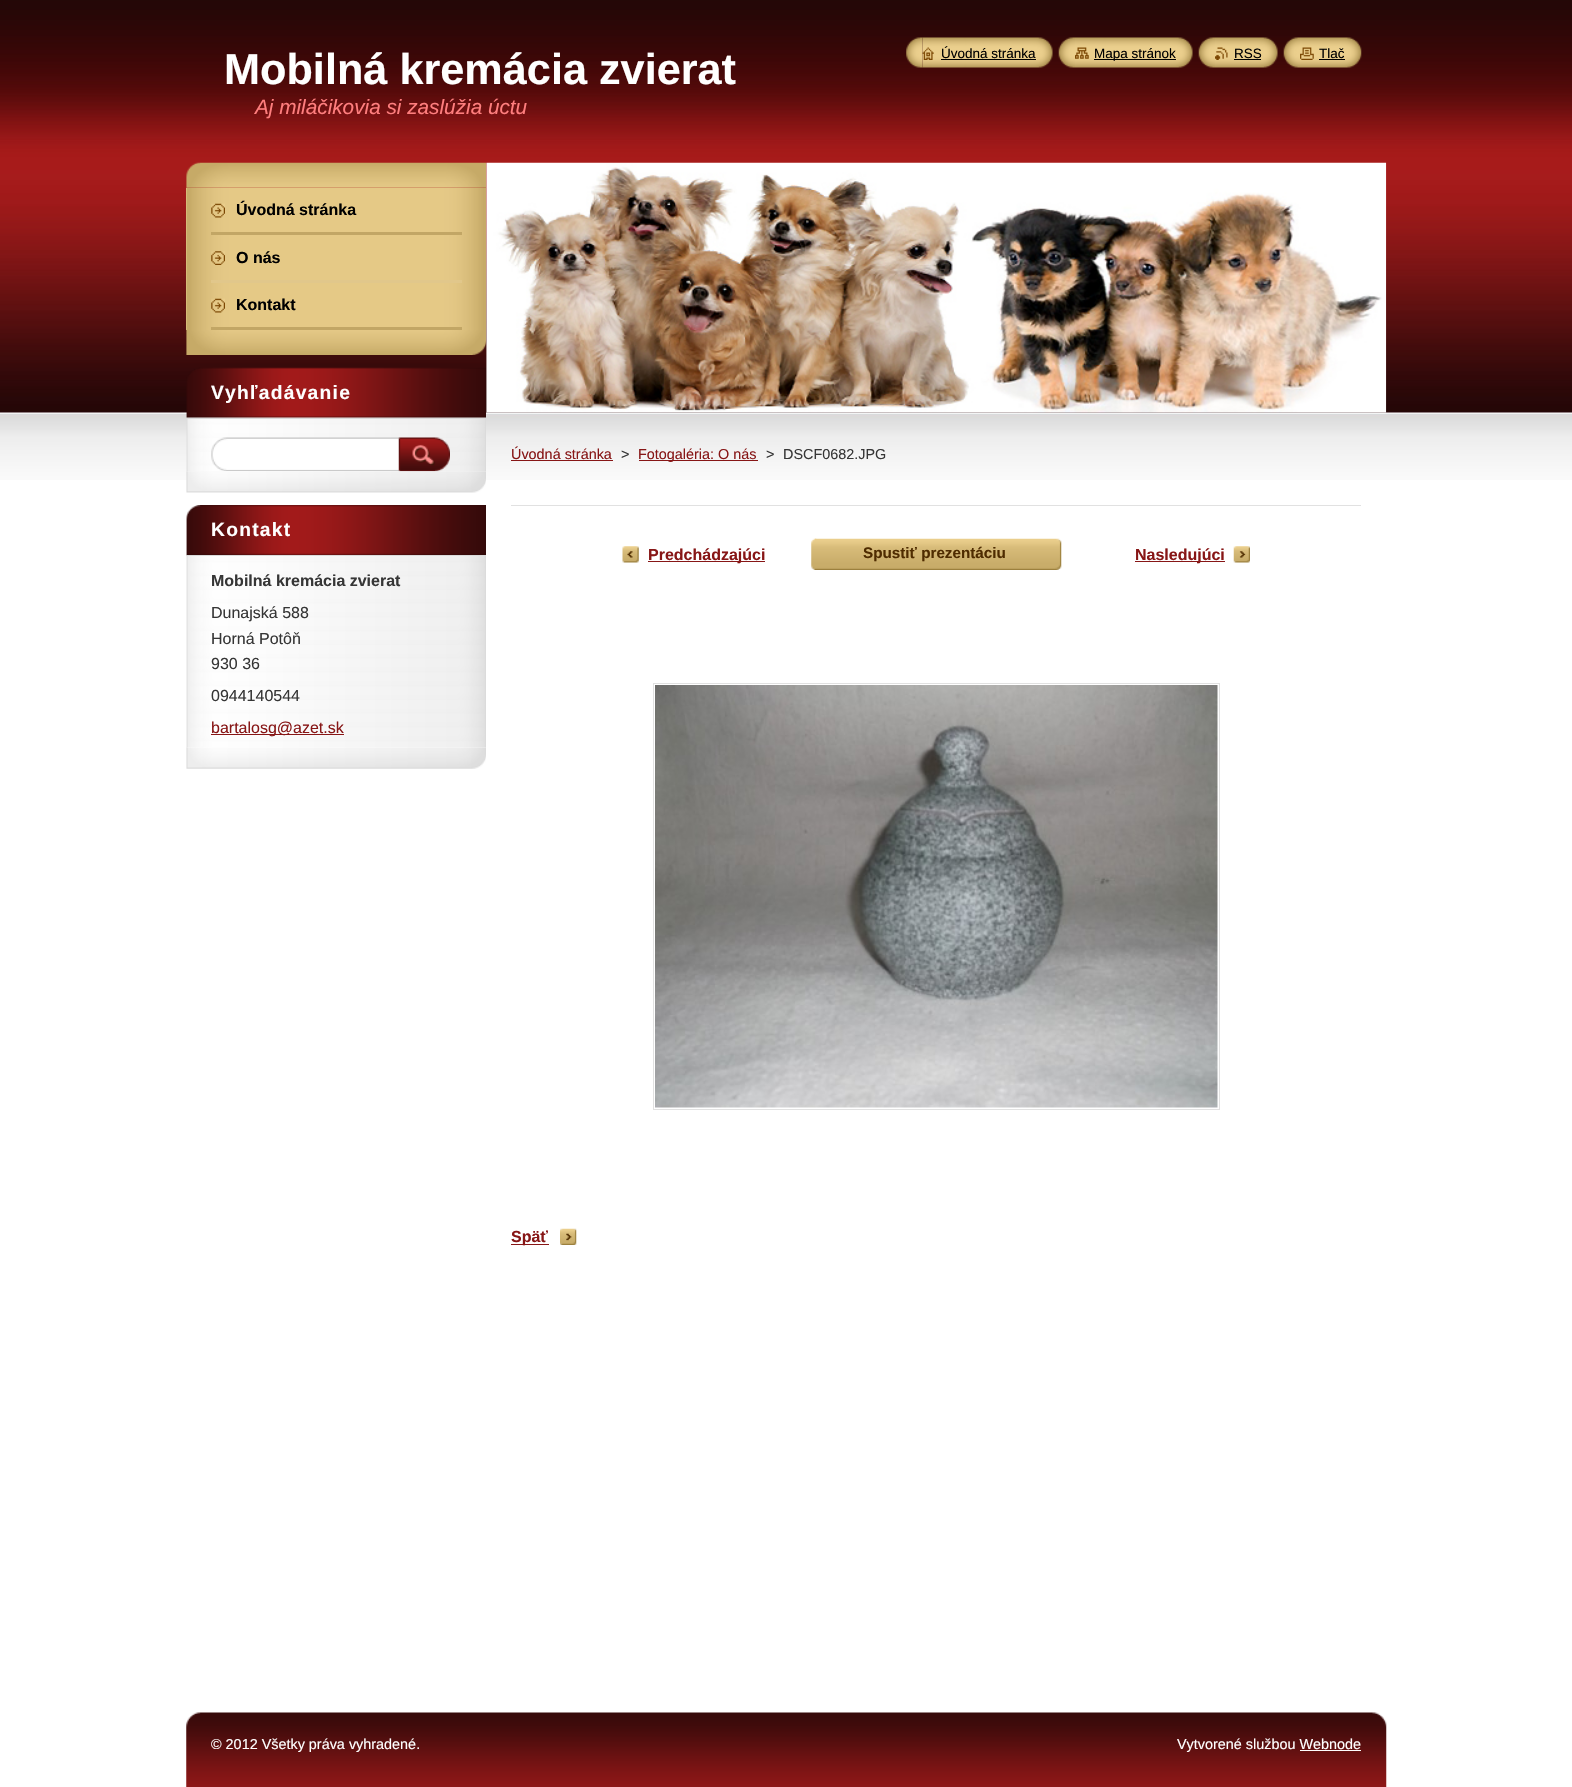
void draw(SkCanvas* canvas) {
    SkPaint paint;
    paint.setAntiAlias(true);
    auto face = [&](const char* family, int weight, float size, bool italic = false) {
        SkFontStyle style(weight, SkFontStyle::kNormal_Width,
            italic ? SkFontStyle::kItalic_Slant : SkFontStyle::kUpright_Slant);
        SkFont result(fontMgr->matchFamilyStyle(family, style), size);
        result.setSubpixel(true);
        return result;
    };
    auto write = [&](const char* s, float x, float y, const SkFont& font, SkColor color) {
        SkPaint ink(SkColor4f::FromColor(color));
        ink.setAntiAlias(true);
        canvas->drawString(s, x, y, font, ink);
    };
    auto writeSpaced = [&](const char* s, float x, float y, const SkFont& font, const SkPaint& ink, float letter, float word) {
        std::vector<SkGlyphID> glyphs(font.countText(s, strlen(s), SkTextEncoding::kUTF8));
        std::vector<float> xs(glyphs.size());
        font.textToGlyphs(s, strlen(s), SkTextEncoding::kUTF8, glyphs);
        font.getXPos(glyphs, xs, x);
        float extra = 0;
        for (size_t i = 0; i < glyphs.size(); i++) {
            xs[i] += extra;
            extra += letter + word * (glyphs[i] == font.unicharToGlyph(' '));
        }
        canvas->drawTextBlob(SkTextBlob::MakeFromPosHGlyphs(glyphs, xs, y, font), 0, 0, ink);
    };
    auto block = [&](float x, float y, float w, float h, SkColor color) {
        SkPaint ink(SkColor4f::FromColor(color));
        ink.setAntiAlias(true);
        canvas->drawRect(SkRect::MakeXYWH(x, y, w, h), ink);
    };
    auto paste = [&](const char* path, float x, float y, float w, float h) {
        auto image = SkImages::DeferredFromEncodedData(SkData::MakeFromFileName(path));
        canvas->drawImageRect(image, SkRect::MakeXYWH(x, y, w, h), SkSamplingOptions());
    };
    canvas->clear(SK_ColorWHITE);
    paste("pic1.png", 0, 0, 1572, 480);
    auto kFont1 = face("Liberation Sans", 700, 43.25f);
    write("Mobilná kremácia zvierat", 224, 84, kFont1, SK_ColorWHITE);
    auto kFont2 = face("Liberation Sans", 400, 20.75f, true);
    write("Aj miláčikovia si zaslúžia úctu", 255, 114, kFont2, SkColorSetRGB(255, 126, 126));
    paste("pic2.png", 906, 37, 17, 31);
    paste("pic3.png", 922, 37, 131, 31);
    paste("pic4.png", 922, 47, 12, 13);
    auto kFont3 = face("Liberation Sans", 400, 13.5f);
    write("Úvodná stránka", 941, 58, kFont3, SK_ColorBLACK);
    block(941, 59, 95, 1, SK_ColorBLACK);
    paste("pic5.png", 1058, 37, 17, 31);
    paste("pic6.png", 1075, 37, 118, 31);
    paste("pic7.png", 1075, 47, 14, 12);
    block(1094, 59, 82, 1, SK_ColorBLACK);
    write("Mapa stránok", 1094, 58, kFont3, SK_ColorBLACK);
    paste("pic8.png", 1198, 37, 17, 31);
    paste("pic9.png", 1215, 37, 63, 31);
    paste("pic10.png", 1215, 47, 13, 13);
    write("RSS", 1234, 58, kFont3, SK_ColorBLACK);
    block(1234, 59, 27, 1, SK_ColorBLACK);
    paste("pic8.png", 1283, 37, 17, 31);
    paste("pic11.png", 1300, 37, 62, 31);
    paste("pic12.png", 1300, 47, 14, 13);
    write("Tlač", 1319, 58, kFont3, SK_ColorBLACK);
    block(1319, 59, 26, 1, SK_ColorBLACK);
    paste("pic13.png", 186, 162, 301, 26);
    paste("pic14.png", 186, 330, 301, 25);
    block(186, 188, 1, 142, SkColorSetRGB(235, 207, 141));
    paste("pic15.png", 186, 187, 301, 143);
    block(211, 232, 251, 3, SkColorSetRGB(194, 166, 101));
    paste("pic16.png", 211, 203, 14, 15);
    auto kFont4 = face("Liberation Sans", 700, 16);
    write("Úvodná stránka", 236, 215, kFont4, SK_ColorBLACK);
    block(211, 280, 251, 3, SkColorSetRGB(225, 199, 139));
    paste("pic17.png", 211, 251, 14, 14);
    write("O nás", 236, 263, kFont4, SK_ColorBLACK);
    block(211, 327, 251, 3, SkColorSetRGB(194, 166, 101));
    paste("pic16.png", 211, 298, 14, 15);
    write("Kontakt", 236, 310, kFont4, SK_ColorBLACK);
    paste("pic18.png", 186, 471, 300, 22);
    paste("pic20.png", 186, 417, 300, 54);
    paste("pic19.png", 186, 367, 300, 51);
    auto kFont5 = face("Liberation Sans", 700, 19.25f);
    paint.setColor(SK_ColorWHITE);
    writeSpaced("Vyhľadávanie", 211, 399, kFont5, paint, 1.25f, 0);
    block(186, 418, 300, 1, SkColorSetRGB(219, 219, 219));
    paste("pic21.png", 211, 437, 189, 34);
    paste("pic22.png", 398, 437, 52, 35);
    paste("pic23.png", 186, 747, 300, 22);
    paste("pic24.png", 186, 505, 300, 50);
    writeSpaced("Kontakt", 211, 536, kFont5, paint, 1.25f, 0);
    paste("pic25.png", 186, 556, 300, 192);
    block(186, 555, 300, 1, SkColorSetRGB(219, 219, 219));
    write("Mobilná kremácia zvierat", 211, 586, kFont4, SkColorSetRGB(54, 54, 54));
    auto kFont6 = face("Liberation Sans", 400, 16);
    write("Dunajská 588", 211, 618, kFont6, SkColorSetRGB(54, 54, 54));
    write("Horná Potôň", 211, 644, kFont6, SkColorSetRGB(54, 54, 54));
    write("930 36", 211, 669, kFont6, SkColorSetRGB(54, 54, 54));
    write("0944140544", 211, 701, kFont6, SkColorSetRGB(54, 54, 54));
    block(211, 734, 133, 1, SkColorSetRGB(135, 22, 22));
    write("bartalosg@azet.sk", 211, 733, kFont6, SkColorSetRGB(135, 22, 22));
    paste("pic26.png", 486, 162, 901, 251);
    auto kFont7 = face("Liberation Sans", 400, 14.4f);
    write("Úvodná stránka", 511, 459, kFont7, SkColorSetRGB(135, 22, 22));
    block(511, 460, 102, 1, SkColorSetRGB(135, 22, 22));
    write(">", 621, 459, kFont7, SkColorSetRGB(54, 54, 54));
    block(639, 460, 119, 1, SkColorSetRGB(135, 22, 22));
    write("Fotogaléria: O nás", 638, 459, kFont7, SkColorSetRGB(135, 22, 22));
    write(">", 766, 459, kFont7, SkColorSetRGB(54, 54, 54));
    write("DSCF0682.JPG", 783, 459, kFont7, SkColorSetRGB(54, 54, 54));
    block(511, 505, 850, 1, SkColorSetRGB(225, 225, 225));
    paste("pic27.png", 622, 546, 17, 17);
    block(648, 561, 117, 1, SkColorSetRGB(135, 22, 22));
    write("Predchádzajúci", 648, 560, kFont4, SkColorSetRGB(135, 22, 22));
    paste("pic28.png", 811, 538, 6, 32);
    paste("pic29.png", 815, 538, 247, 32);
    auto kFont8 = face("Liberation Sans", 700, 15.25f);
    write("Spustiť prezentáciu", 863, 558, kFont8, SkColorSetRGB(79, 44, 0));
    paste("pic30.png", 1233, 546, 17, 17);
    block(1135, 561, 90, 1, SkColorSetRGB(135, 22, 22));
    write("Nasledujúci", 1135, 560, kFont4, SkColorSetRGB(135, 22, 22));
    paint.setStyle(SkPaint::kStroke_Style);
    paint.setStrokeWidth(1);
    paint.setColor(SkColorSetRGB(225, 225, 225));
    canvas->drawRect(SkRect::MakeXYWH(653.5f, 683.5f, 566, 426), paint);
    paste("pic31.png", 655, 685, 563, 423);
    paste("pic32.png", 560, 1228, 17, 17);
    block(511, 1244, 38, 1, SkColorSetRGB(135, 22, 22));
    write("Späť", 511, 1242, kFont4, SkColorSetRGB(135, 22, 22));
    paste("pic33.png", 186, 1712, 1201, 75);
    write("© 2012 Všetky práva vyhradené.", 211, 1749, kFont7, SK_ColorWHITE);
    write("Vytvorené službou Webnode", 1177, 1749, kFont7, SK_ColorWHITE);
    block(1300, 1750, 61, 1, SK_ColorWHITE);
}
